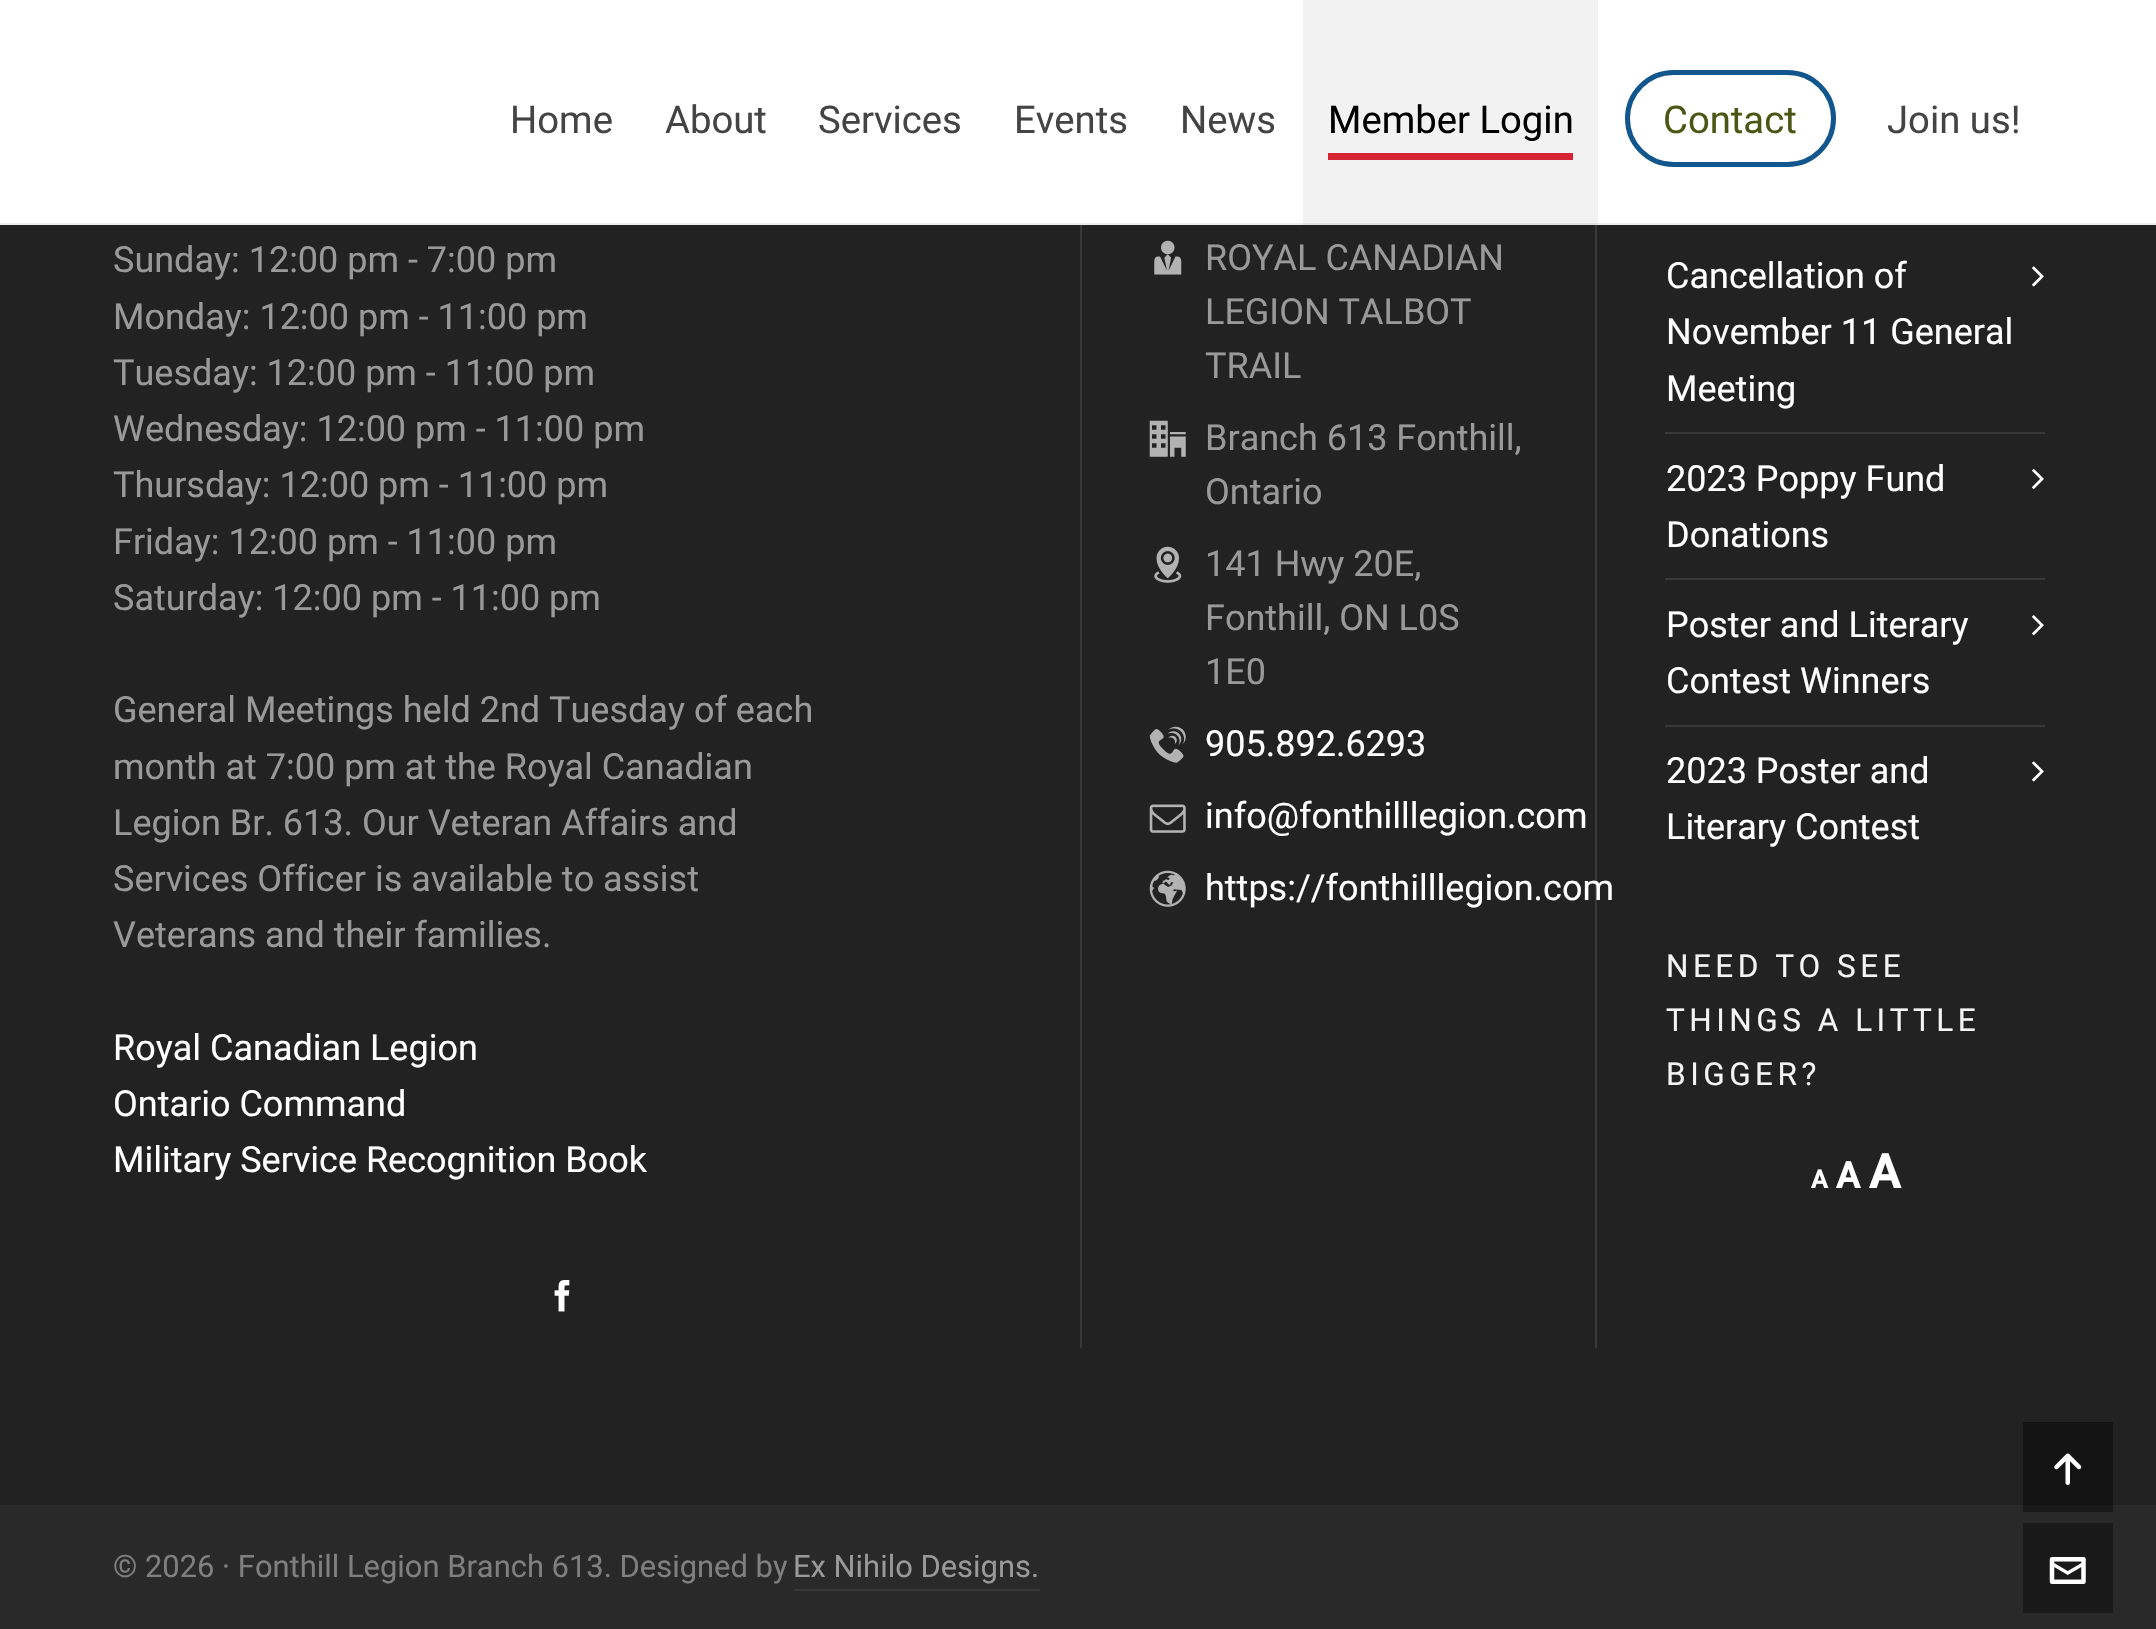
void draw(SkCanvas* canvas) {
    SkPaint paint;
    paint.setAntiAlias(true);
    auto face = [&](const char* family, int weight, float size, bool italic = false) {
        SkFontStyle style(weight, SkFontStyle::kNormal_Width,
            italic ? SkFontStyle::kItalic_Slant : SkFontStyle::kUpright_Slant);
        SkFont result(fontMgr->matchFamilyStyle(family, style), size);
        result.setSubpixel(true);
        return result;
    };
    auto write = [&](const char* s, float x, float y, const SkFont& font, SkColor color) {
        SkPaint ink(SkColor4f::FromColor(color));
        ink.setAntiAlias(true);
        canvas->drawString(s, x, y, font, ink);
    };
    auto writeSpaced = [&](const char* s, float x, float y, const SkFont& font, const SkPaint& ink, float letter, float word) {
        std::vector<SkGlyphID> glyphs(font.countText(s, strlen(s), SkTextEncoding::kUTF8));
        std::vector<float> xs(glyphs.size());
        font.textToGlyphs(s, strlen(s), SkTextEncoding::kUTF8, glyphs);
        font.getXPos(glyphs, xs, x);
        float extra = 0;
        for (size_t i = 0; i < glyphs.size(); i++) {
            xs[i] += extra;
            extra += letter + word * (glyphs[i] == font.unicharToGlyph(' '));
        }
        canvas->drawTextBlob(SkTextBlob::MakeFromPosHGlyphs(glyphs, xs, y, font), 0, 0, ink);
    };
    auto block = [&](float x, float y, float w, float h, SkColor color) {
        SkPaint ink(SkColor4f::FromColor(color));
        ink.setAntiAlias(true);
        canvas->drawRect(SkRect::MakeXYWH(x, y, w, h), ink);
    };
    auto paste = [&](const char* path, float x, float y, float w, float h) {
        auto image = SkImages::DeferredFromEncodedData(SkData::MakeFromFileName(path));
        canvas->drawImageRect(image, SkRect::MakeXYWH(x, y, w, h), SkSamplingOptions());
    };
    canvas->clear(SkColorSetRGB(34, 34, 34));
    block(0, 0, 2156, 223, SK_ColorWHITE);
    block(0, 223, 2156, 2, SkColorSetRGB(235, 235, 235));
    auto kFont1 = face("Roboto", 400, 38.25f);
    write("Home", 510, 133, kFont1, SkColorSetRGB(68, 68, 68));
    write("About", 665, 133, kFont1, SkColorSetRGB(68, 68, 68));
    write("Services", 818, 133, kFont1, SkColorSetRGB(68, 68, 68));
    write("Events", 1014, 133, kFont1, SkColorSetRGB(68, 68, 68));
    write("News", 1180, 133, kFont1, SkColorSetRGB(68, 68, 68));
    block(1303, 0, 295, 225, SkColorSetARGB(13, 0, 0, 0));
    write("Member Login", 1328, 133, kFont1, SK_ColorBLACK);
    block(1328, 153, 245, 7, SkColorSetRGB(214, 36, 52));
    paint.setStyle(SkPaint::kStroke_Style);
    paint.setStrokeWidth(5);
    paint.setColor(SkColorSetRGB(17, 86, 141));
    canvas->drawRoundRect(SkRect::MakeXYWH(1627.5f, 72.5f, 206, 92), 46, 46, paint);
    write("Contact", 1663, 133, kFont1, SkColorSetRGB(75, 86, 21));
    write("Join us!", 1887, 133, kFont1, SkColorSetRGB(68, 68, 68));
    block(2023, 1422, 90, 83, SkColorSetRGB(20, 20, 20));
    auto kFont2 = face("Roboto", 400, 36);
    write("Sunday: 12:00 pm - 7:00 pm", 113, 272, kFont2, SkColorSetRGB(153, 153, 153));
    write("Monday: 12:00 pm - 11:00 pm", 113, 329, kFont2, SkColorSetRGB(153, 153, 153));
    write("Tuesday: 12:00 pm - 11:00 pm", 113, 385, kFont2, SkColorSetRGB(153, 153, 153));
    write("Wednesday: 12:00 pm - 11:00 pm", 113, 441, kFont2, SkColorSetRGB(153, 153, 153));
    write("Thursday: 12:00 pm - 11:00 pm", 113, 497, kFont2, SkColorSetRGB(153, 153, 153));
    write("Friday: 12:00 pm - 11:00 pm", 113, 554, kFont2, SkColorSetRGB(153, 153, 153));
    write("Saturday: 12:00 pm - 11:00 pm", 113, 610, kFont2, SkColorSetRGB(153, 153, 153));
    write("General Meetings held 2nd Tuesday of each", 113, 722, kFont2, SkColorSetRGB(153, 153, 153));
    write("month at 7:00 pm at the Royal Canadian", 113, 779, kFont2, SkColorSetRGB(153, 153, 153));
    write("Legion Br. 613. Our Veteran Affairs and", 113, 835, kFont2, SkColorSetRGB(153, 153, 153));
    write("Services Officer is available to assist", 113, 891, kFont2, SkColorSetRGB(153, 153, 153));
    write("Veterans and their families.", 113, 947, kFont2, SkColorSetRGB(153, 153, 153));
    write("Royal Canadian Legion", 113, 1060, kFont2, SK_ColorWHITE);
    write("Ontario Command", 113, 1116, kFont2, SK_ColorWHITE);
    write("Military Service Recognition Book", 113, 1172, kFont2, SK_ColorWHITE);
    paste("pic1.png", 554, 1280, 16, 32);
    block(1080, 225, 2, 1123, SkColorSetRGB(56, 56, 56));
    paste("pic2.png", 1154, 240, 28, 35);
    write("ROYAL CANADIAN", 1205, 270, kFont2, SkColorSetRGB(153, 153, 153));
    write("LEGION TALBOT", 1205, 324, kFont2, SkColorSetRGB(153, 153, 153));
    write("TRAIL", 1205, 378, kFont2, SkColorSetRGB(153, 153, 153));
    paste("pic3.png", 1149, 420, 37, 37);
    write("Branch 613 Fonthill,", 1205, 450, kFont2, SkColorSetRGB(153, 153, 153));
    write("Ontario", 1205, 504, kFont2, SkColorSetRGB(153, 153, 153));
    paste("pic4.png", 1154, 546, 28, 37);
    write("141 Hwy 20E,", 1205, 576, kFont2, SkColorSetRGB(153, 153, 153));
    write("Fonthill, ON L0S", 1205, 630, kFont2, SkColorSetRGB(153, 153, 153));
    write("1E0", 1205, 684, kFont2, SkColorSetRGB(153, 153, 153));
    paste("pic5.png", 1149, 726, 37, 37);
    write("905.892.6293", 1205, 756, kFont2, SK_ColorWHITE);
    paste("pic6.png", 1149, 804, 37, 29);
    write("info@fonthilllegion.com", 1205, 828, kFont2, SK_ColorWHITE);
    paste("pic7.png", 1149, 870, 37, 37);
    write("https://fonthilllegion.com", 1205, 900, kFont2, SK_ColorWHITE);
    block(1595, 225, 2, 1123, SkColorSetARGB(26, 255, 255, 255));
    write("Cancellation of", 1666, 288, kFont2, SK_ColorWHITE);
    paste("pic8.png", 2032, 266, 12, 21);
    write("November 11 General", 1666, 344, kFont2, SK_ColorWHITE);
    write("Meeting", 1666, 401, kFont2, SK_ColorWHITE);
    block(1665, 432, 380, 2, SkColorSetRGB(56, 56, 56));
    write("2023 Poppy Fund", 1666, 491, kFont2, SK_ColorWHITE);
    paste("pic9.png", 2032, 469, 12, 20);
    write("Donations", 1666, 547, kFont2, SK_ColorWHITE);
    block(1665, 578, 380, 2, SkColorSetRGB(56, 56, 56));
    write("Poster and Literary", 1666, 637, kFont2, SK_ColorWHITE);
    paste("pic10.png", 2032, 615, 12, 21);
    write("Contest Winners", 1666, 693, kFont2, SK_ColorWHITE);
    block(1665, 725, 380, 2, SkColorSetRGB(56, 56, 56));
    write("2023 Poster and", 1666, 783, kFont2, SK_ColorWHITE);
    paste("pic8.png", 2032, 761, 12, 21);
    write("Literary Contest", 1666, 839, kFont2, SK_ColorWHITE);
    auto kFont3 = face("Roboto", 400, 31.5f);
    paint.setStyle(SkPaint::kFill_Style);
    paint.setColor(SkColorSetRGB(244, 244, 244));
    writeSpaced("NEED TO SEE", 1666, 977, kFont3, paint, 4.5f, 0);
    writeSpaced("THINGS A LITTLE", 1666, 1031, kFont3, paint, 4.5f, 0);
    writeSpaced("BIGGER?", 1666, 1085, kFont3, paint, 4.5f, 0);
    auto kFont4 = face("Roboto", 700, 25);
    write("A", 1811, 1188, kFont4, SK_ColorWHITE);
    auto kFont5 = face("Roboto", 700, 36);
    write("A", 1836, 1188, kFont5, SK_ColorWHITE);
    auto kFont6 = face("Roboto", 700, 47);
    write("A", 1869, 1188, kFont6, SK_ColorWHITE);
    paste("pic11.png", 2054, 1453, 28, 32);
    block(0, 1505, 2156, 124, SkColorSetRGB(41, 41, 41));
    block(2023, 1505, 90, 7, SkColorSetRGB(25, 25, 25));
    auto kFont7 = face("Roboto", 400, 30.9f);
    write("© 2026 · Fonthill Legion Branch 613. Designed by", 113, 1577, kFont7, SkColorSetRGB(127, 127, 127));
    write("Ex Nihilo Designs.", 793, 1577, kFont7, SkColorSetRGB(153, 153, 153));
    block(794, 1589, 246, 2, SkColorSetRGB(56, 56, 56));
    block(2023, 1523, 90, 90, SkColorSetRGB(25, 25, 25));
    paste("pic12.png", 2049, 1557, 37, 27);
}
